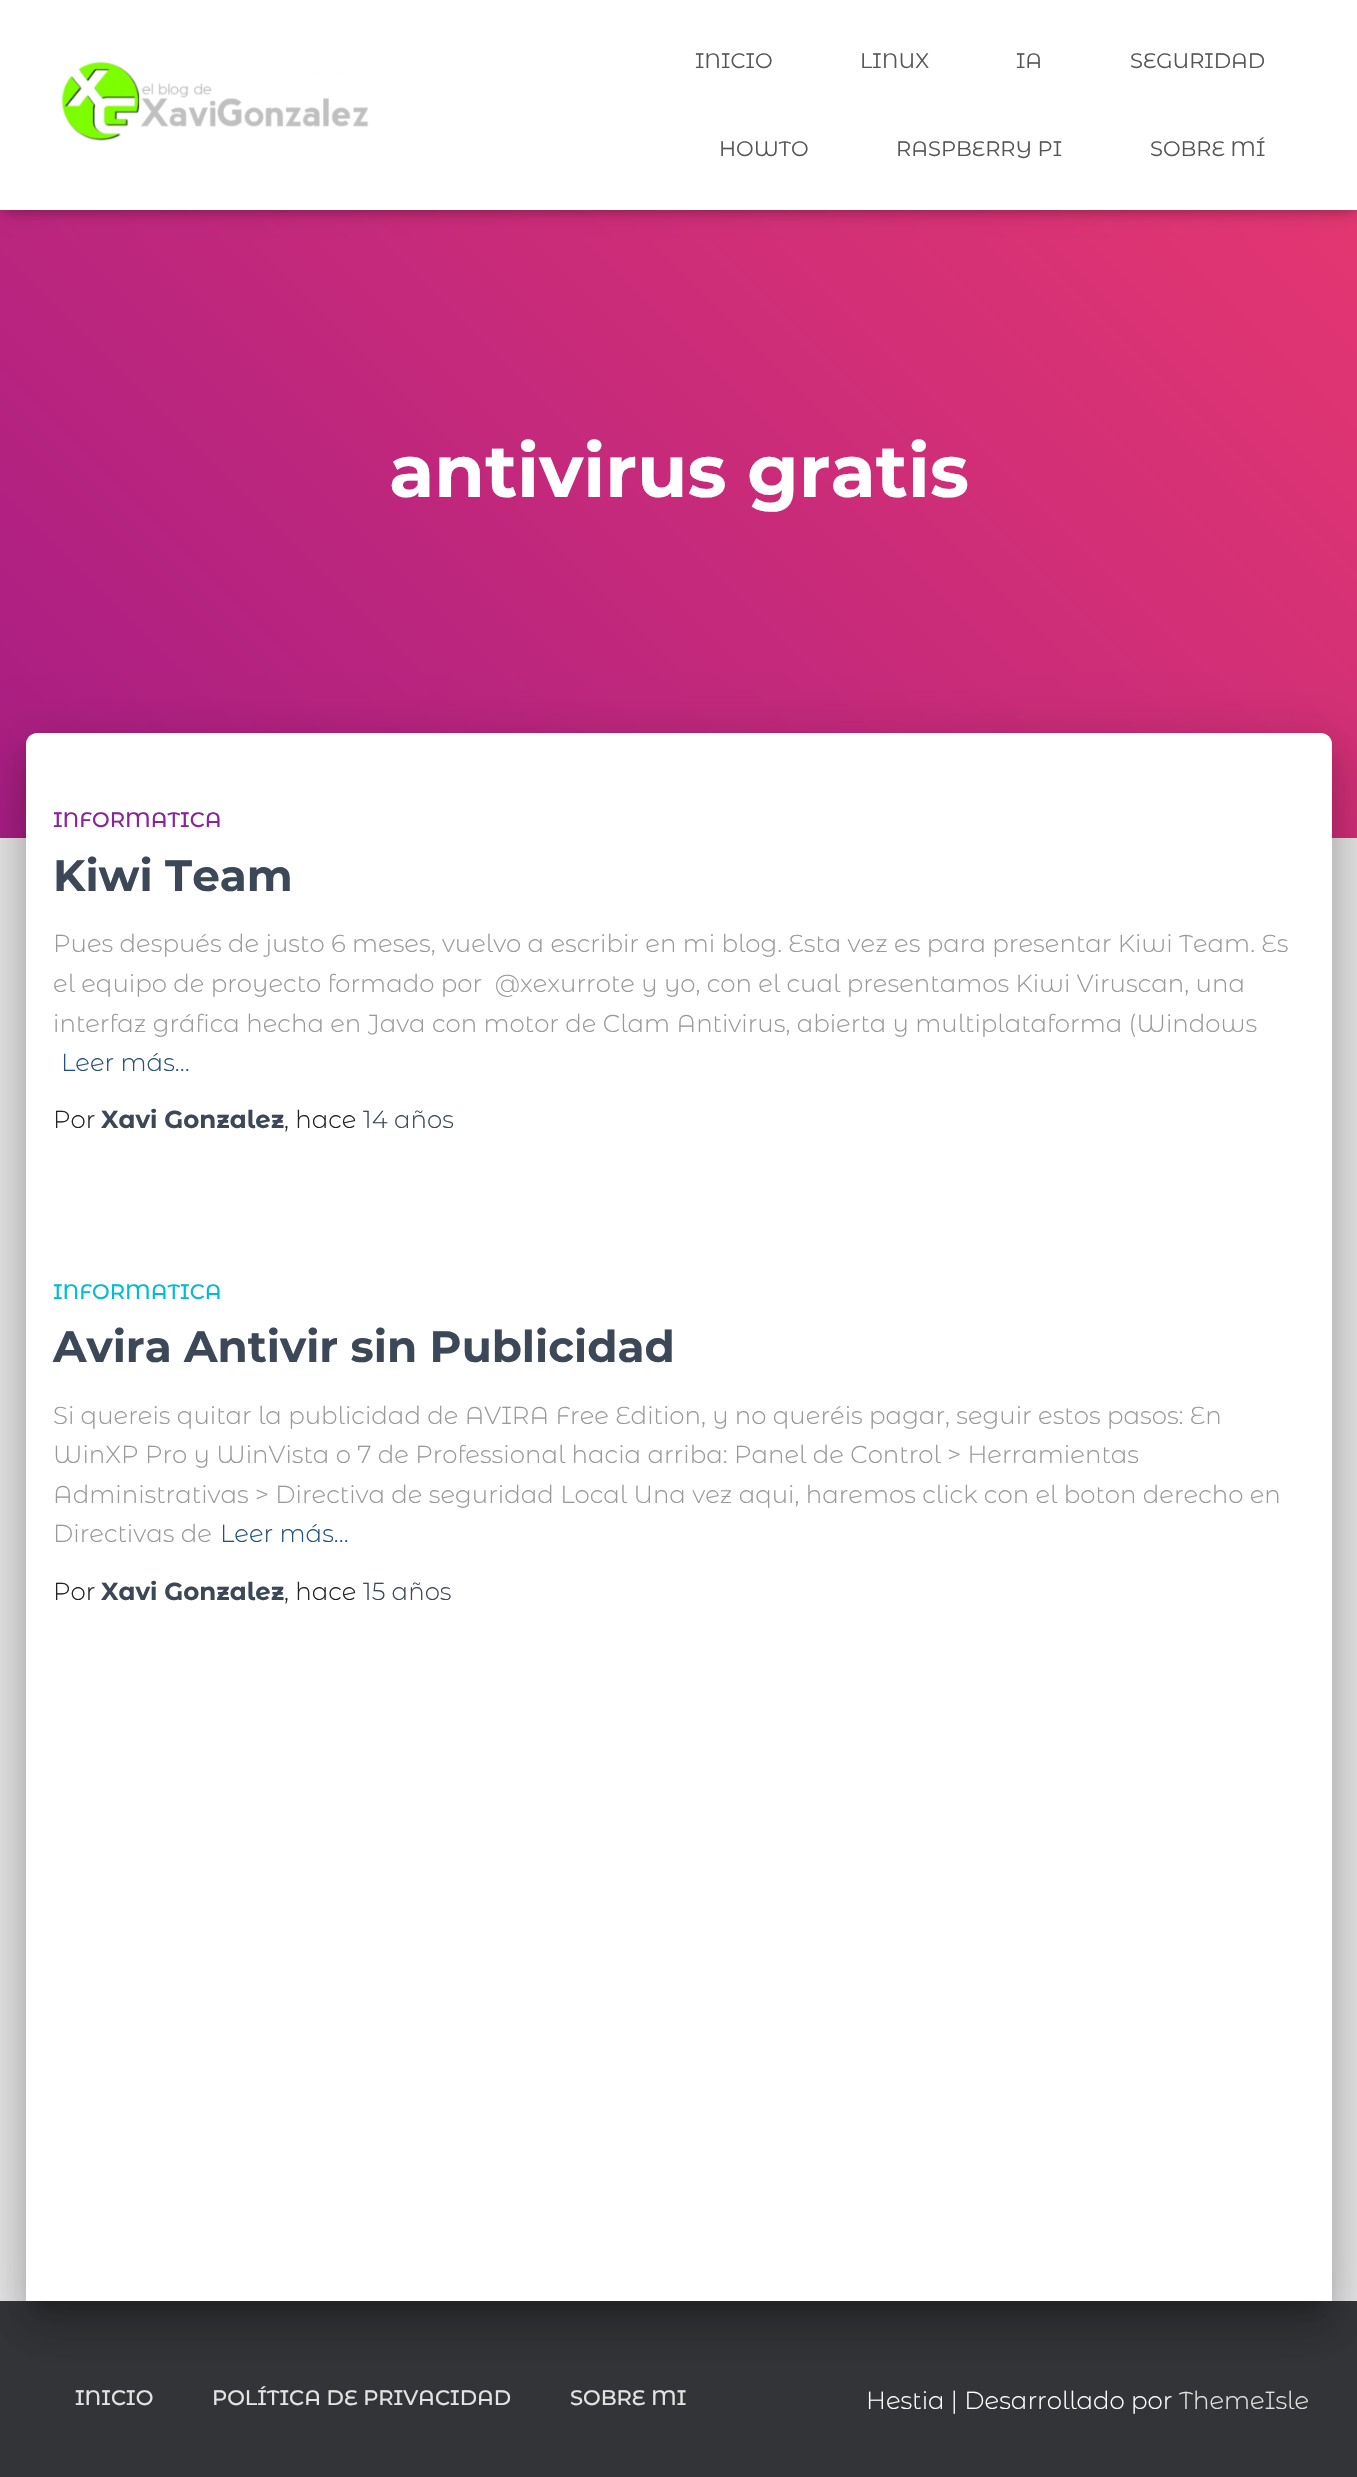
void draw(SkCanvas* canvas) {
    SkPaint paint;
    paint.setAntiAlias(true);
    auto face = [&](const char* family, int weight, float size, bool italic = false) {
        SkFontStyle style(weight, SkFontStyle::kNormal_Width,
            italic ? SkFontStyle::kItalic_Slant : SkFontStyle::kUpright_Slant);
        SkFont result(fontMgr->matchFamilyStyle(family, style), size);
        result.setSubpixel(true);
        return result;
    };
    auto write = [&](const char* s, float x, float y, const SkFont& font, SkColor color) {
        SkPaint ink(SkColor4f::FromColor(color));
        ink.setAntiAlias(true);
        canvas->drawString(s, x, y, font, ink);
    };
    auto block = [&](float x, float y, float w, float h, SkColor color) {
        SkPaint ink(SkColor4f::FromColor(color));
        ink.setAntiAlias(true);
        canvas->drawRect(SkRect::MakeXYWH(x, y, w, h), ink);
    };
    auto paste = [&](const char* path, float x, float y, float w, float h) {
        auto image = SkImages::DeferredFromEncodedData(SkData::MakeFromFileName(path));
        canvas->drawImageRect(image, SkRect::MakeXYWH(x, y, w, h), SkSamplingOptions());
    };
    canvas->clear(SkColorSetRGB(229, 229, 229));
    {
        const SkColor colors[] = {SkColorSetRGB(168, 29, 132), SkColorSetRGB(234, 57, 111)};
        const float stops[] = {0, 1};
        const SkPoint ends[] = {{130, 968}, {1228, -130}};
        paint.setShader(SkGradientShader::MakeLinear(ends, colors, stops, 2, SkTileMode::kClamp));
        paint.setAlpha(255);
    }
    canvas->drawRect(SkRect::MakeXYWH(0, 210, 1357, 628), paint);
    paint.setShader(nullptr);
    paint.setColor(SkColorSetARGB(26, 0, 0, 0));
    paint.setMaskFilter(SkMaskFilter::MakeBlur(kNormal_SkBlurStyle, 4.5f));
    canvas->drawRect(SkRect::MakeXYWH(4, 11, 1351, 203), paint);
    paint.setMaskFilter(nullptr);
    paint.setColor(SkColorSetARGB(31, 0, 0, 0));
    paint.setMaskFilter(SkMaskFilter::MakeBlur(kNormal_SkBlurStyle, 9));
    canvas->drawRect(SkRect::MakeXYWH(0, 2, 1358, 210), paint);
    paint.setMaskFilter(nullptr);
    paint.setColor(SkColorSetARGB(107, 0, 0, 0));
    paint.setMaskFilter(SkMaskFilter::MakeBlur(kNormal_SkBlurStyle, 9));
    canvas->drawRect(SkRect::MakeXYWH(11, 12, 1337, 189), paint);
    paint.setMaskFilter(nullptr);
    block(0, 0, 1357, 210, SK_ColorWHITE);
    paste("pic1.png", 61, 61, 308, 80);
    auto kFont1 = face("Montserrat Alternates", 400, 21);
    write("INICIO", 695, 68, kFont1, SkColorSetRGB(85, 85, 85));
    write("LINUX", 860, 68, kFont1, SkColorSetRGB(85, 85, 85));
    write("IA", 1016, 68, kFont1, SkColorSetRGB(85, 85, 85));
    write("SEGURIDAD", 1130, 68, kFont1, SkColorSetRGB(85, 85, 85));
    write("HOWTO", 719, 156, kFont1, SkColorSetRGB(85, 85, 85));
    write("RASPBERRY PI", 896, 156, kFont1, SkColorSetRGB(85, 85, 85));
    write("SOBRE MÍ", 1150, 156, kFont1, SkColorSetRGB(85, 85, 85));
    auto kFont2 = face("Montserrat", 700, 73.5f);
    write("antivirus gratis", 389, 497, kFont2, SK_ColorWHITE);
    block(0, 2301, 1357, 176, SkColorSetRGB(50, 52, 55));
    paint.setColor(SkColorSetARGB(51, 0, 0, 0));
    paint.setMaskFilter(SkMaskFilter::MakeBlur(kNormal_SkBlurStyle, 9));
    canvas->drawRoundRect(SkRect::MakeXYWH(35, 756, 1288, 1551), 2, 2, paint);
    paint.setMaskFilter(nullptr);
    paint.setColor(SkColorSetARGB(31, 0, 0, 0));
    paint.setMaskFilter(SkMaskFilter::MakeBlur(kNormal_SkBlurStyle, 26));
    canvas->drawRoundRect(SkRect::MakeXYWH(18, 735, 1323, 1586), 19, 19, paint);
    paint.setMaskFilter(nullptr);
    paint.setColor(SkColorSetARGB(36, 0, 0, 0));
    paint.setMaskFilter(SkMaskFilter::MakeBlur(kNormal_SkBlurStyle, 21));
    canvas->drawRoundRect(SkRect::MakeXYWH(23, 758, 1312, 1575), 14, 14, paint);
    paint.setMaskFilter(nullptr);
    paint.setColor(SK_ColorWHITE);
    canvas->drawPath(SkPathBuilder().moveTo(37, 733).lineTo(1321, 733).cubicTo(1327, 733, 1332, 738, 1332, 744).lineTo(1332, 2301).lineTo(26, 2301).lineTo(26, 744).cubicTo(26, 738, 31, 733, 37, 733).close().detach(), paint);
    auto kFont3 = face("Montserrat Alternates", 500, 21);
    write("INFORMATICA", 53, 827, kFont3, SkColorSetRGB(137, 34, 155));
    auto kFont4 = face("Montserrat", 700, 43.75f);
    write("Kiwi Team", 53, 891, kFont4, SkColorSetRGB(60, 72, 88));
    auto kFont5 = face("Montserrat Alternates", 300, 24.5f);
    write("Pues después de justo 6 meses, vuelvo a escribir en mi blog. Esta vez es para presentar Kiwi Team. Es", 53, 952, kFont5, SkColorSetRGB(153, 153, 153));
    write("el equipo de proyecto formado por  @xexurrote y yo, con el cual presentamos Kiwi Viruscan, una", 53, 992, kFont5, SkColorSetRGB(153, 153, 153));
    write("interfaz gráfica hecha en Java con motor de Clam Antivirus, abierta y multiplataforma (Windows", 53, 1032, kFont5, SkColorSetRGB(153, 153, 153));
    write("Leer más…", 61, 1071, kFont5, SkColorSetRGB(35, 82, 124));
    write("Por", 53, 1128, kFont5, SkColorSetRGB(33, 33, 33));
    auto kFont6 = face("Montserrat Alternates", 700, 24.5f);
    write("Xavi Gonzalez", 101, 1128, kFont6, SkColorSetRGB(60, 72, 88));
    write(", hace", 284, 1128, kFont5, SkColorSetRGB(33, 33, 33));
    write("14 años", 363, 1128, kFont5, SkColorSetRGB(60, 72, 88));
    write("INFORMATICA", 53, 1299, kFont3, SkColorSetRGB(0, 188, 212));
    write("Avira Antivir sin Publicidad", 53, 1362, kFont4, SkColorSetRGB(60, 72, 88));
    write("Si quereis quitar la publicidad de AVIRA Free Edition, y no queréis pagar, seguir estos pasos: En", 53, 1424, kFont5, SkColorSetRGB(153, 153, 153));
    write("WinXP Pro y WinVista o 7 de Professional hacia arriba: Panel de Control > Herramientas", 53, 1463, kFont5, SkColorSetRGB(153, 153, 153));
    write("Administrativas > Directiva de seguridad Local Una vez aqui, haremos click con el boton derecho en", 53, 1503, kFont5, SkColorSetRGB(153, 153, 153));
    write("Directivas de", 53, 1542, kFont5, SkColorSetRGB(153, 153, 153));
    write("Leer más…", 220, 1542, kFont5, SkColorSetRGB(35, 82, 124));
    write("Por", 53, 1600, kFont5, SkColorSetRGB(33, 33, 33));
    write("Xavi Gonzalez", 101, 1600, kFont6, SkColorSetRGB(60, 72, 88));
    write(", hace", 284, 1600, kFont5, SkColorSetRGB(33, 33, 33));
    write("15 años", 363, 1600, kFont5, SkColorSetRGB(60, 72, 88));
    write("INICIO", 75, 2405, kFont3, SkColorSetRGB(226, 227, 227));
    write("POLÍTICA DE PRIVACIDAD", 212, 2405, kFont3, SkColorSetRGB(226, 227, 227));
    write("SOBRE MI", 570, 2405, kFont3, SkColorSetRGB(226, 227, 227));
    write("Hestia | Desarrollado por", 866, 2409, kFont5, SK_ColorWHITE);
    write("ThemeIsle", 1179, 2409, kFont5, SkColorSetRGB(226, 227, 227));
}
